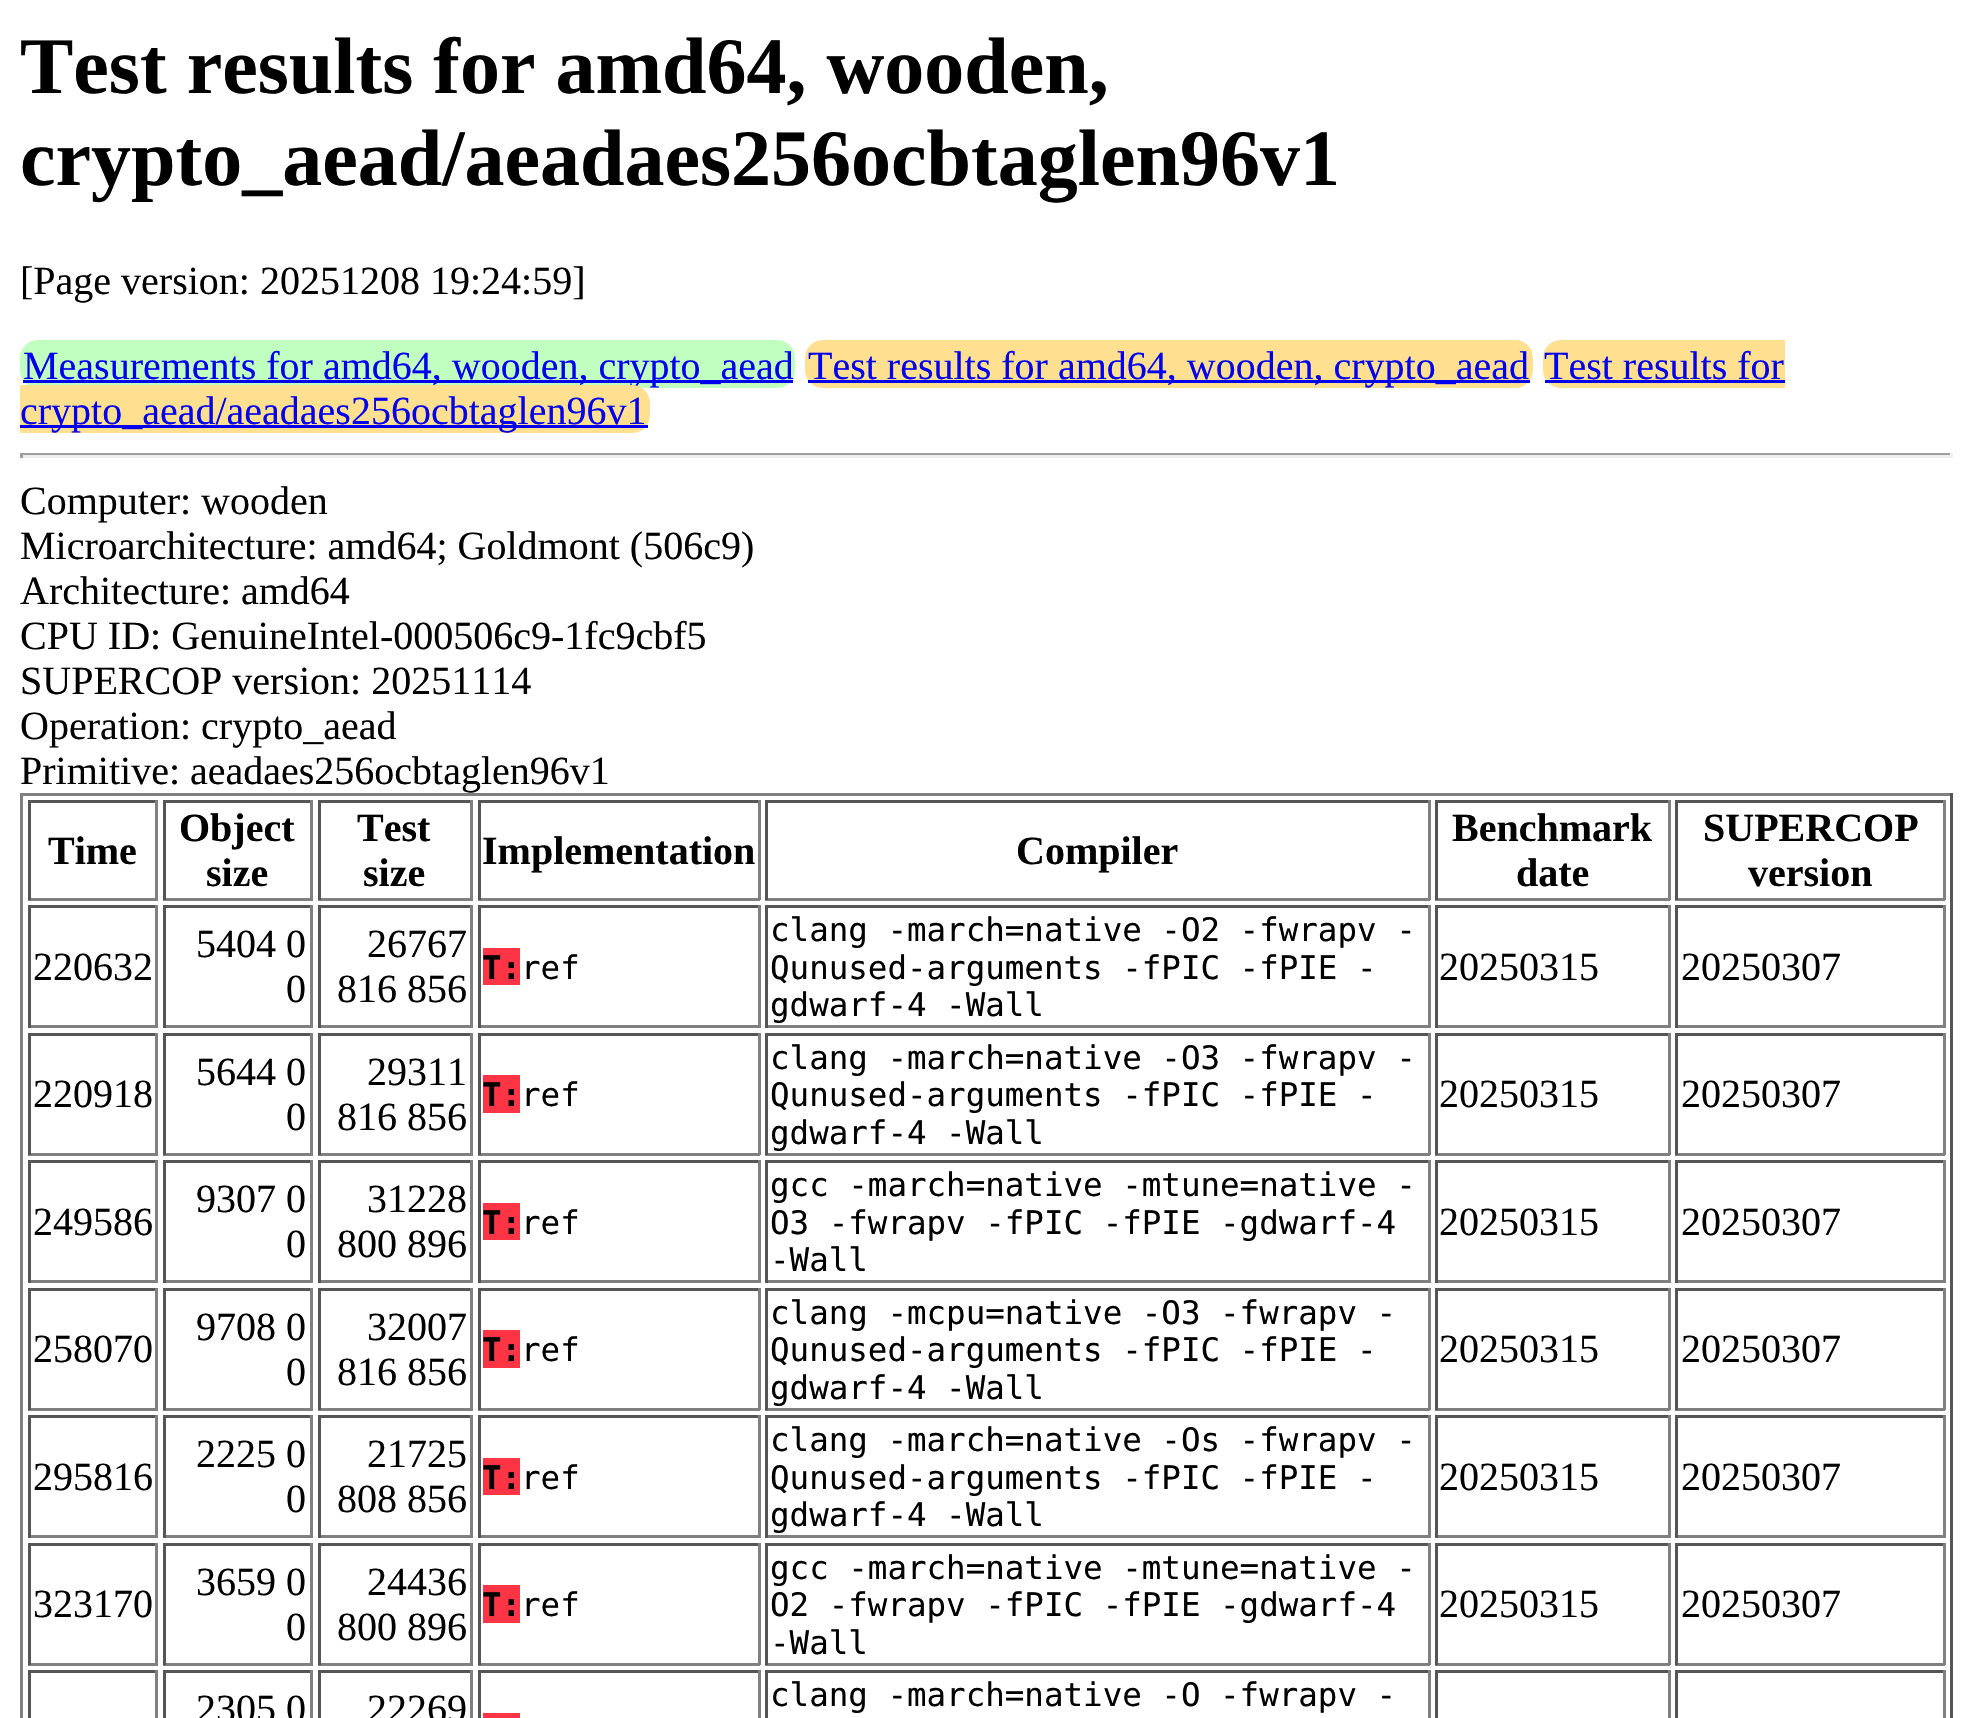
void draw(SkCanvas* canvas) {
    SkPaint paint;
    paint.setAntiAlias(true);
    auto face = [&](const char* family, int weight, float size, bool italic = false) {
        SkFontStyle style(weight, SkFontStyle::kNormal_Width,
            italic ? SkFontStyle::kItalic_Slant : SkFontStyle::kUpright_Slant);
        SkFont result(fontMgr->matchFamilyStyle(family, style), size);
        result.setSubpixel(true);
        return result;
    };
    auto write = [&](const char* s, float x, float y, const SkFont& font, SkColor color) {
        SkPaint ink(SkColor4f::FromColor(color));
        ink.setAntiAlias(true);
        canvas->drawString(s, x, y, font, ink);
    };
    auto block = [&](float x, float y, float w, float h, SkColor color) {
        SkPaint ink(SkColor4f::FromColor(color));
        ink.setAntiAlias(true);
        canvas->drawRect(SkRect::MakeXYWH(x, y, w, h), ink);
    };
    auto card = [&](float x, float y, float w, float h, float radius, SkColor color) {
        SkPaint ink(SkColor4f::FromColor(color));
        ink.setAntiAlias(true);
        canvas->drawRoundRect(SkRect::MakeXYWH(x, y, w, h), radius, radius, ink);
    };
    canvas->clear(SK_ColorWHITE);
    auto kFont1 = face("Liberation Serif", 700, 80);
    write("Test results for amd64, wooden,", 20, 93, kFont1, SK_ColorBLACK);
    write("crypto_aead/aeadaes256ocbtaglen96v1", 20, 185, kFont1, SK_ColorBLACK);
    auto kFont2 = face("Liberation Serif", 400, 40);
    write("[Page version: 20251208 19:24:59]", 20, 294, kFont2, SK_ColorBLACK);
    card(20, 340, 775, 48, 18, SkColorSetRGB(192, 255, 192));
    block(23, 380, 770, 3, SkColorSetRGB(0, 0, 238));
    write("Measurements for amd64, wooden, crypto_aead", 23, 379, kFont2, SkColorSetRGB(0, 0, 238));
    card(805, 340, 728, 48, 18, SkColorSetRGB(255, 224, 144));
    block(808, 380, 722, 3, SkColorSetRGB(0, 0, 238));
    write("Test results for amd64, wooden, crypto_aead", 808, 379, kFont2, SkColorSetRGB(0, 0, 238));
    paint.setColor(SkColorSetRGB(255, 224, 144));
    canvas->drawPath(SkPathBuilder().moveTo(1561, 340).lineTo(1785, 340).lineTo(1785, 388).lineTo(1561, 388).cubicTo(1551, 388, 1543, 380, 1543, 370).lineTo(1543, 358).cubicTo(1543, 348, 1551, 340, 1561, 340).close().detach(), paint);
    write("Test results for", 1544, 379, kFont2, SkColorSetRGB(0, 0, 238));
    block(1545, 380, 240, 3, SkColorSetRGB(0, 0, 238));
    canvas->drawPath(SkPathBuilder().moveTo(20, 385).lineTo(632, 385).cubicTo(642, 385, 650, 393, 650, 403).lineTo(650, 415).cubicTo(650, 425, 642, 433, 632, 433).lineTo(20, 433).close().detach(), paint);
    block(20, 425, 628, 3, SkColorSetRGB(0, 0, 238));
    write("crypto_aead/aeadaes256ocbtaglen96v1", 20, 424, kFont2, SkColorSetRGB(0, 0, 238));
    block(20, 453, 1933, 2, SkColorSetRGB(159, 159, 159));
    block(1950, 453, 3, 5, SkColorSetRGB(238, 238, 238));
    block(20, 455, 1933, 3, SkColorSetRGB(238, 238, 238));
    block(20, 453, 3, 5, SkColorSetRGB(159, 159, 159));
    write("Computer: wooden", 20, 514, kFont2, SK_ColorBLACK);
    write("Microarchitecture: amd64; Goldmont (506c9)", 20, 559, kFont2, SK_ColorBLACK);
    write("Architecture: amd64", 20, 604, kFont2, SK_ColorBLACK);
    write("CPU ID: GenuineIntel-000506c9-1fc9cbf5", 20, 649, kFont2, SK_ColorBLACK);
    write("SUPERCOP version: 20251114", 20, 694, kFont2, SK_ColorBLACK);
    write("Operation: crypto_aead", 20, 739, kFont2, SK_ColorBLACK);
    write("Primitive: aeadaes256ocbtaglen96v1", 20, 784, kFont2, SK_ColorBLACK);
    block(20, 793, 1933, 3, SkColorSetRGB(128, 128, 128));
    block(1950, 793, 3, 925, SkColorSetRGB(85, 85, 85));
    block(20, 793, 3, 925, SkColorSetRGB(128, 128, 128));
    block(28, 800, 130, 3, SkColorSetRGB(85, 85, 85));
    block(155, 800, 3, 100, SkColorSetRGB(128, 128, 128));
    block(28, 898, 130, 3, SkColorSetRGB(128, 128, 128));
    block(28, 800, 3, 100, SkColorSetRGB(85, 85, 85));
    auto kFont3 = face("Liberation Serif", 700, 40);
    write("Time", 48, 864, kFont3, SK_ColorBLACK);
    block(163, 800, 150, 3, SkColorSetRGB(85, 85, 85));
    block(310, 800, 3, 100, SkColorSetRGB(128, 128, 128));
    block(163, 898, 150, 3, SkColorSetRGB(128, 128, 128));
    block(163, 800, 3, 100, SkColorSetRGB(85, 85, 85));
    write("Object", 179, 841, kFont3, SK_ColorBLACK);
    write("size", 206, 886, kFont3, SK_ColorBLACK);
    block(318, 800, 155, 3, SkColorSetRGB(85, 85, 85));
    block(470, 800, 3, 100, SkColorSetRGB(128, 128, 128));
    block(318, 898, 155, 3, SkColorSetRGB(128, 128, 128));
    block(318, 800, 3, 100, SkColorSetRGB(85, 85, 85));
    write("Test", 357, 841, kFont3, SK_ColorBLACK);
    write("size", 363, 886, kFont3, SK_ColorBLACK);
    block(478, 800, 282, 3, SkColorSetRGB(85, 85, 85));
    block(758, 800, 3, 100, SkColorSetRGB(128, 128, 128));
    block(478, 898, 282, 3, SkColorSetRGB(128, 128, 128));
    block(478, 800, 3, 100, SkColorSetRGB(85, 85, 85));
    write("Implementation", 482, 864, kFont3, SK_ColorBLACK);
    block(765, 800, 665, 3, SkColorSetRGB(85, 85, 85));
    block(1428, 800, 3, 100, SkColorSetRGB(128, 128, 128));
    block(765, 898, 665, 3, SkColorSetRGB(128, 128, 128));
    block(765, 800, 3, 100, SkColorSetRGB(85, 85, 85));
    write("Compiler", 1016, 864, kFont3, SK_ColorBLACK);
    block(1435, 800, 235, 3, SkColorSetRGB(85, 85, 85));
    block(1668, 800, 3, 100, SkColorSetRGB(128, 128, 128));
    block(1435, 898, 235, 3, SkColorSetRGB(128, 128, 128));
    block(1435, 800, 3, 100, SkColorSetRGB(85, 85, 85));
    write("Benchmark", 1452, 841, kFont3, SK_ColorBLACK);
    write("date", 1516, 886, kFont3, SK_ColorBLACK);
    block(1675, 800, 270, 3, SkColorSetRGB(85, 85, 85));
    block(1943, 800, 3, 100, SkColorSetRGB(128, 128, 128));
    block(1675, 898, 270, 3, SkColorSetRGB(128, 128, 128));
    block(1675, 800, 3, 100, SkColorSetRGB(85, 85, 85));
    write("SUPERCOP", 1703, 841, kFont3, SK_ColorBLACK);
    write("version", 1748, 886, kFont3, SK_ColorBLACK);
    block(28, 905, 130, 3, SkColorSetRGB(85, 85, 85));
    block(155, 905, 3, 123, SkColorSetRGB(128, 128, 128));
    block(28, 1025, 130, 3, SkColorSetRGB(128, 128, 128));
    block(28, 905, 3, 123, SkColorSetRGB(85, 85, 85));
    write("220632", 33, 980, kFont2, SK_ColorBLACK);
    block(163, 905, 150, 3, SkColorSetRGB(85, 85, 85));
    block(310, 905, 3, 123, SkColorSetRGB(128, 128, 128));
    block(163, 1025, 150, 3, SkColorSetRGB(128, 128, 128));
    block(163, 905, 3, 123, SkColorSetRGB(85, 85, 85));
    write("5404 0", 196, 957, kFont2, SK_ColorBLACK);
    write("0", 286, 1002, kFont2, SK_ColorBLACK);
    block(318, 905, 155, 3, SkColorSetRGB(85, 85, 85));
    block(470, 905, 3, 123, SkColorSetRGB(128, 128, 128));
    block(318, 1025, 155, 3, SkColorSetRGB(128, 128, 128));
    block(318, 905, 3, 123, SkColorSetRGB(85, 85, 85));
    write("26767", 367, 957, kFont2, SK_ColorBLACK);
    write("816 856", 337, 1002, kFont2, SK_ColorBLACK);
    block(478, 905, 282, 3, SkColorSetRGB(85, 85, 85));
    block(758, 905, 3, 123, SkColorSetRGB(128, 128, 128));
    block(478, 1025, 282, 3, SkColorSetRGB(128, 128, 128));
    block(478, 905, 3, 123, SkColorSetRGB(85, 85, 85));
    block(483, 948, 37, 37, SkColorSetRGB(255, 53, 69));
    auto kFont4 = face("DejaVu Sans Mono", 700, 32.5f);
    write("T:", 482, 979, kFont4, SK_ColorBLACK);
    auto kFont5 = face("DejaVu Sans Mono", 400, 32.5f);
    write("ref", 521, 979, kFont5, SK_ColorBLACK);
    block(765, 905, 665, 3, SkColorSetRGB(85, 85, 85));
    block(1428, 905, 3, 123, SkColorSetRGB(128, 128, 128));
    block(765, 1025, 665, 3, SkColorSetRGB(128, 128, 128));
    block(765, 905, 3, 123, SkColorSetRGB(85, 85, 85));
    write("clang -march=native -O2 -fwrapv -", 770, 941, kFont5, SK_ColorBLACK);
    write("Qunused-arguments -fPIC -fPIE -", 770, 979, kFont5, SK_ColorBLACK);
    write("gdwarf-4 -Wall", 770, 1016, kFont5, SK_ColorBLACK);
    block(1435, 905, 235, 3, SkColorSetRGB(85, 85, 85));
    block(1668, 905, 3, 123, SkColorSetRGB(128, 128, 128));
    block(1435, 1025, 235, 3, SkColorSetRGB(128, 128, 128));
    block(1435, 905, 3, 123, SkColorSetRGB(85, 85, 85));
    write("20250315", 1439, 980, kFont2, SK_ColorBLACK);
    block(1675, 905, 270, 3, SkColorSetRGB(85, 85, 85));
    block(1943, 905, 3, 123, SkColorSetRGB(128, 128, 128));
    block(1675, 1025, 270, 3, SkColorSetRGB(128, 128, 128));
    block(1675, 905, 3, 123, SkColorSetRGB(85, 85, 85));
    write("20250307", 1681, 980, kFont2, SK_ColorBLACK);
    block(28, 1033, 130, 3, SkColorSetRGB(85, 85, 85));
    block(155, 1033, 3, 122, SkColorSetRGB(128, 128, 128));
    block(28, 1153, 130, 3, SkColorSetRGB(128, 128, 128));
    block(28, 1033, 3, 122, SkColorSetRGB(85, 85, 85));
    write("220918", 33, 1107, kFont2, SK_ColorBLACK);
    block(163, 1033, 150, 3, SkColorSetRGB(85, 85, 85));
    block(310, 1033, 3, 122, SkColorSetRGB(128, 128, 128));
    block(163, 1153, 150, 3, SkColorSetRGB(128, 128, 128));
    block(163, 1033, 3, 122, SkColorSetRGB(85, 85, 85));
    write("5644 0", 196, 1085, kFont2, SK_ColorBLACK);
    write("0", 286, 1130, kFont2, SK_ColorBLACK);
    block(318, 1033, 155, 3, SkColorSetRGB(85, 85, 85));
    block(470, 1033, 3, 122, SkColorSetRGB(128, 128, 128));
    block(318, 1153, 155, 3, SkColorSetRGB(128, 128, 128));
    block(318, 1033, 3, 122, SkColorSetRGB(85, 85, 85));
    write("29311", 367, 1085, kFont2, SK_ColorBLACK);
    write("816 856", 337, 1130, kFont2, SK_ColorBLACK);
    block(478, 1033, 282, 3, SkColorSetRGB(85, 85, 85));
    block(758, 1033, 3, 122, SkColorSetRGB(128, 128, 128));
    block(478, 1153, 282, 3, SkColorSetRGB(128, 128, 128));
    block(478, 1033, 3, 122, SkColorSetRGB(85, 85, 85));
    block(483, 1075, 37, 38, SkColorSetRGB(255, 53, 69));
    write("T:", 482, 1106, kFont4, SK_ColorBLACK);
    write("ref", 521, 1106, kFont5, SK_ColorBLACK);
    block(765, 1033, 665, 3, SkColorSetRGB(85, 85, 85));
    block(1428, 1033, 3, 122, SkColorSetRGB(128, 128, 128));
    block(765, 1153, 665, 3, SkColorSetRGB(128, 128, 128));
    block(765, 1033, 3, 122, SkColorSetRGB(85, 85, 85));
    write("clang -march=native -O3 -fwrapv -", 770, 1069, kFont5, SK_ColorBLACK);
    write("Qunused-arguments -fPIC -fPIE -", 770, 1106, kFont5, SK_ColorBLACK);
    write("gdwarf-4 -Wall", 770, 1144, kFont5, SK_ColorBLACK);
    block(1435, 1033, 235, 3, SkColorSetRGB(85, 85, 85));
    block(1668, 1033, 3, 122, SkColorSetRGB(128, 128, 128));
    block(1435, 1153, 235, 3, SkColorSetRGB(128, 128, 128));
    block(1435, 1033, 3, 122, SkColorSetRGB(85, 85, 85));
    write("20250315", 1439, 1107, kFont2, SK_ColorBLACK);
    block(1675, 1033, 270, 3, SkColorSetRGB(85, 85, 85));
    block(1943, 1033, 3, 122, SkColorSetRGB(128, 128, 128));
    block(1675, 1153, 270, 3, SkColorSetRGB(128, 128, 128));
    block(1675, 1033, 3, 122, SkColorSetRGB(85, 85, 85));
    write("20250307", 1681, 1107, kFont2, SK_ColorBLACK);
    block(28, 1160, 130, 3, SkColorSetRGB(85, 85, 85));
    block(155, 1160, 3, 123, SkColorSetRGB(128, 128, 128));
    block(28, 1280, 130, 3, SkColorSetRGB(128, 128, 128));
    block(28, 1160, 3, 123, SkColorSetRGB(85, 85, 85));
    write("249586", 33, 1235, kFont2, SK_ColorBLACK);
    block(163, 1160, 150, 3, SkColorSetRGB(85, 85, 85));
    block(310, 1160, 3, 123, SkColorSetRGB(128, 128, 128));
    block(163, 1280, 150, 3, SkColorSetRGB(128, 128, 128));
    block(163, 1160, 3, 123, SkColorSetRGB(85, 85, 85));
    write("9307 0", 196, 1212, kFont2, SK_ColorBLACK);
    write("0", 286, 1257, kFont2, SK_ColorBLACK);
    block(318, 1160, 155, 3, SkColorSetRGB(85, 85, 85));
    block(470, 1160, 3, 123, SkColorSetRGB(128, 128, 128));
    block(318, 1280, 155, 3, SkColorSetRGB(128, 128, 128));
    block(318, 1160, 3, 123, SkColorSetRGB(85, 85, 85));
    write("31228", 367, 1212, kFont2, SK_ColorBLACK);
    write("800 896", 337, 1257, kFont2, SK_ColorBLACK);
    block(478, 1160, 282, 3, SkColorSetRGB(85, 85, 85));
    block(758, 1160, 3, 123, SkColorSetRGB(128, 128, 128));
    block(478, 1280, 282, 3, SkColorSetRGB(128, 128, 128));
    block(478, 1160, 3, 123, SkColorSetRGB(85, 85, 85));
    block(483, 1203, 37, 37, SkColorSetRGB(255, 53, 69));
    write("T:", 482, 1234, kFont4, SK_ColorBLACK);
    write("ref", 521, 1234, kFont5, SK_ColorBLACK);
    block(765, 1160, 665, 3, SkColorSetRGB(85, 85, 85));
    block(1428, 1160, 3, 123, SkColorSetRGB(128, 128, 128));
    block(765, 1280, 665, 3, SkColorSetRGB(128, 128, 128));
    block(765, 1160, 3, 123, SkColorSetRGB(85, 85, 85));
    write("gcc -march=native -mtune=native -", 770, 1196, kFont5, SK_ColorBLACK);
    write("O3 -fwrapv -fPIC -fPIE -gdwarf-4", 770, 1234, kFont5, SK_ColorBLACK);
    write("-Wall", 770, 1271, kFont5, SK_ColorBLACK);
    block(1435, 1160, 235, 3, SkColorSetRGB(85, 85, 85));
    block(1668, 1160, 3, 123, SkColorSetRGB(128, 128, 128));
    block(1435, 1280, 235, 3, SkColorSetRGB(128, 128, 128));
    block(1435, 1160, 3, 123, SkColorSetRGB(85, 85, 85));
    write("20250315", 1439, 1235, kFont2, SK_ColorBLACK);
    block(1675, 1160, 270, 3, SkColorSetRGB(85, 85, 85));
    block(1943, 1160, 3, 123, SkColorSetRGB(128, 128, 128));
    block(1675, 1280, 270, 3, SkColorSetRGB(128, 128, 128));
    block(1675, 1160, 3, 123, SkColorSetRGB(85, 85, 85));
    write("20250307", 1681, 1235, kFont2, SK_ColorBLACK);
    block(28, 1288, 130, 3, SkColorSetRGB(85, 85, 85));
    block(155, 1288, 3, 122, SkColorSetRGB(128, 128, 128));
    block(28, 1408, 130, 3, SkColorSetRGB(128, 128, 128));
    block(28, 1288, 3, 122, SkColorSetRGB(85, 85, 85));
    write("258070", 33, 1362, kFont2, SK_ColorBLACK);
    block(163, 1288, 150, 3, SkColorSetRGB(85, 85, 85));
    block(310, 1288, 3, 122, SkColorSetRGB(128, 128, 128));
    block(163, 1408, 150, 3, SkColorSetRGB(128, 128, 128));
    block(163, 1288, 3, 122, SkColorSetRGB(85, 85, 85));
    write("9708 0", 196, 1340, kFont2, SK_ColorBLACK);
    write("0", 286, 1385, kFont2, SK_ColorBLACK);
    block(318, 1288, 155, 3, SkColorSetRGB(85, 85, 85));
    block(470, 1288, 3, 122, SkColorSetRGB(128, 128, 128));
    block(318, 1408, 155, 3, SkColorSetRGB(128, 128, 128));
    block(318, 1288, 3, 122, SkColorSetRGB(85, 85, 85));
    write("32007", 367, 1340, kFont2, SK_ColorBLACK);
    write("816 856", 337, 1385, kFont2, SK_ColorBLACK);
    block(478, 1288, 282, 3, SkColorSetRGB(85, 85, 85));
    block(758, 1288, 3, 122, SkColorSetRGB(128, 128, 128));
    block(478, 1408, 282, 3, SkColorSetRGB(128, 128, 128));
    block(478, 1288, 3, 122, SkColorSetRGB(85, 85, 85));
    block(483, 1330, 37, 38, SkColorSetRGB(255, 53, 69));
    write("T:", 482, 1361, kFont4, SK_ColorBLACK);
    write("ref", 521, 1361, kFont5, SK_ColorBLACK);
    block(765, 1288, 665, 3, SkColorSetRGB(85, 85, 85));
    block(1428, 1288, 3, 122, SkColorSetRGB(128, 128, 128));
    block(765, 1408, 665, 3, SkColorSetRGB(128, 128, 128));
    block(765, 1288, 3, 122, SkColorSetRGB(85, 85, 85));
    write("clang -mcpu=native -O3 -fwrapv -", 770, 1324, kFont5, SK_ColorBLACK);
    write("Qunused-arguments -fPIC -fPIE -", 770, 1361, kFont5, SK_ColorBLACK);
    write("gdwarf-4 -Wall", 770, 1399, kFont5, SK_ColorBLACK);
    block(1435, 1288, 235, 3, SkColorSetRGB(85, 85, 85));
    block(1668, 1288, 3, 122, SkColorSetRGB(128, 128, 128));
    block(1435, 1408, 235, 3, SkColorSetRGB(128, 128, 128));
    block(1435, 1288, 3, 122, SkColorSetRGB(85, 85, 85));
    write("20250315", 1439, 1362, kFont2, SK_ColorBLACK);
    block(1675, 1288, 270, 3, SkColorSetRGB(85, 85, 85));
    block(1943, 1288, 3, 122, SkColorSetRGB(128, 128, 128));
    block(1675, 1408, 270, 3, SkColorSetRGB(128, 128, 128));
    block(1675, 1288, 3, 122, SkColorSetRGB(85, 85, 85));
    write("20250307", 1681, 1362, kFont2, SK_ColorBLACK);
    block(28, 1415, 130, 3, SkColorSetRGB(85, 85, 85));
    block(155, 1415, 3, 123, SkColorSetRGB(128, 128, 128));
    block(28, 1535, 130, 3, SkColorSetRGB(128, 128, 128));
    block(28, 1415, 3, 123, SkColorSetRGB(85, 85, 85));
    write("295816", 33, 1490, kFont2, SK_ColorBLACK);
    block(163, 1415, 150, 3, SkColorSetRGB(85, 85, 85));
    block(310, 1415, 3, 123, SkColorSetRGB(128, 128, 128));
    block(163, 1535, 150, 3, SkColorSetRGB(128, 128, 128));
    block(163, 1415, 3, 123, SkColorSetRGB(85, 85, 85));
    write("2225 0", 196, 1467, kFont2, SK_ColorBLACK);
    write("0", 286, 1512, kFont2, SK_ColorBLACK);
    block(318, 1415, 155, 3, SkColorSetRGB(85, 85, 85));
    block(470, 1415, 3, 123, SkColorSetRGB(128, 128, 128));
    block(318, 1535, 155, 3, SkColorSetRGB(128, 128, 128));
    block(318, 1415, 3, 123, SkColorSetRGB(85, 85, 85));
    write("21725", 367, 1467, kFont2, SK_ColorBLACK);
    write("808 856", 337, 1512, kFont2, SK_ColorBLACK);
    block(478, 1415, 282, 3, SkColorSetRGB(85, 85, 85));
    block(758, 1415, 3, 123, SkColorSetRGB(128, 128, 128));
    block(478, 1535, 282, 3, SkColorSetRGB(128, 128, 128));
    block(478, 1415, 3, 123, SkColorSetRGB(85, 85, 85));
    block(483, 1458, 37, 37, SkColorSetRGB(255, 53, 69));
    write("T:", 482, 1489, kFont4, SK_ColorBLACK);
    write("ref", 521, 1489, kFont5, SK_ColorBLACK);
    block(765, 1415, 665, 3, SkColorSetRGB(85, 85, 85));
    block(1428, 1415, 3, 123, SkColorSetRGB(128, 128, 128));
    block(765, 1535, 665, 3, SkColorSetRGB(128, 128, 128));
    block(765, 1415, 3, 123, SkColorSetRGB(85, 85, 85));
    write("clang -march=native -Os -fwrapv -", 770, 1451, kFont5, SK_ColorBLACK);
    write("Qunused-arguments -fPIC -fPIE -", 770, 1489, kFont5, SK_ColorBLACK);
    write("gdwarf-4 -Wall", 770, 1526, kFont5, SK_ColorBLACK);
    block(1435, 1415, 235, 3, SkColorSetRGB(85, 85, 85));
    block(1668, 1415, 3, 123, SkColorSetRGB(128, 128, 128));
    block(1435, 1535, 235, 3, SkColorSetRGB(128, 128, 128));
    block(1435, 1415, 3, 123, SkColorSetRGB(85, 85, 85));
    write("20250315", 1439, 1490, kFont2, SK_ColorBLACK);
    block(1675, 1415, 270, 3, SkColorSetRGB(85, 85, 85));
    block(1943, 1415, 3, 123, SkColorSetRGB(128, 128, 128));
    block(1675, 1535, 270, 3, SkColorSetRGB(128, 128, 128));
    block(1675, 1415, 3, 123, SkColorSetRGB(85, 85, 85));
    write("20250307", 1681, 1490, kFont2, SK_ColorBLACK);
    block(28, 1543, 130, 3, SkColorSetRGB(85, 85, 85));
    block(155, 1543, 3, 122, SkColorSetRGB(128, 128, 128));
    block(28, 1663, 130, 3, SkColorSetRGB(128, 128, 128));
    block(28, 1543, 3, 122, SkColorSetRGB(85, 85, 85));
    write("323170", 33, 1617, kFont2, SK_ColorBLACK);
    block(163, 1543, 150, 3, SkColorSetRGB(85, 85, 85));
    block(310, 1543, 3, 122, SkColorSetRGB(128, 128, 128));
    block(163, 1663, 150, 3, SkColorSetRGB(128, 128, 128));
    block(163, 1543, 3, 122, SkColorSetRGB(85, 85, 85));
    write("3659 0", 196, 1595, kFont2, SK_ColorBLACK);
    write("0", 286, 1640, kFont2, SK_ColorBLACK);
    block(318, 1543, 155, 3, SkColorSetRGB(85, 85, 85));
    block(470, 1543, 3, 122, SkColorSetRGB(128, 128, 128));
    block(318, 1663, 155, 3, SkColorSetRGB(128, 128, 128));
    block(318, 1543, 3, 122, SkColorSetRGB(85, 85, 85));
    write("24436", 367, 1595, kFont2, SK_ColorBLACK);
    write("800 896", 337, 1640, kFont2, SK_ColorBLACK);
    block(478, 1543, 282, 3, SkColorSetRGB(85, 85, 85));
    block(758, 1543, 3, 122, SkColorSetRGB(128, 128, 128));
    block(478, 1663, 282, 3, SkColorSetRGB(128, 128, 128));
    block(478, 1543, 3, 122, SkColorSetRGB(85, 85, 85));
    block(483, 1585, 37, 38, SkColorSetRGB(255, 53, 69));
    write("T:", 482, 1616, kFont4, SK_ColorBLACK);
    write("ref", 521, 1616, kFont5, SK_ColorBLACK);
    block(765, 1543, 665, 3, SkColorSetRGB(85, 85, 85));
    block(1428, 1543, 3, 122, SkColorSetRGB(128, 128, 128));
    block(765, 1663, 665, 3, SkColorSetRGB(128, 128, 128));
    block(765, 1543, 3, 122, SkColorSetRGB(85, 85, 85));
    write("gcc -march=native -mtune=native -", 770, 1579, kFont5, SK_ColorBLACK);
    write("O2 -fwrapv -fPIC -fPIE -gdwarf-4", 770, 1616, kFont5, SK_ColorBLACK);
    write("-Wall", 770, 1654, kFont5, SK_ColorBLACK);
    block(1435, 1543, 235, 3, SkColorSetRGB(85, 85, 85));
    block(1668, 1543, 3, 122, SkColorSetRGB(128, 128, 128));
    block(1435, 1663, 235, 3, SkColorSetRGB(128, 128, 128));
    block(1435, 1543, 3, 122, SkColorSetRGB(85, 85, 85));
    write("20250315", 1439, 1617, kFont2, SK_ColorBLACK);
    block(1675, 1543, 270, 3, SkColorSetRGB(85, 85, 85));
    block(1943, 1543, 3, 122, SkColorSetRGB(128, 128, 128));
    block(1675, 1663, 270, 3, SkColorSetRGB(128, 128, 128));
    block(1675, 1543, 3, 122, SkColorSetRGB(85, 85, 85));
    write("20250307", 1681, 1617, kFont2, SK_ColorBLACK);
    block(28, 1670, 130, 3, SkColorSetRGB(85, 85, 85));
    block(155, 1670, 3, 48, SkColorSetRGB(128, 128, 128));
    block(28, 1670, 3, 48, SkColorSetRGB(85, 85, 85));
    block(163, 1670, 150, 3, SkColorSetRGB(85, 85, 85));
    block(310, 1670, 3, 48, SkColorSetRGB(128, 128, 128));
    block(163, 1670, 3, 48, SkColorSetRGB(85, 85, 85));
    write("2305 0", 196, 1722, kFont2, SK_ColorBLACK);
    block(318, 1670, 155, 3, SkColorSetRGB(85, 85, 85));
    block(470, 1670, 3, 48, SkColorSetRGB(128, 128, 128));
    block(318, 1670, 3, 48, SkColorSetRGB(85, 85, 85));
    write("22269", 367, 1722, kFont2, SK_ColorBLACK);
    block(478, 1670, 282, 3, SkColorSetRGB(85, 85, 85));
    block(758, 1670, 3, 48, SkColorSetRGB(128, 128, 128));
    block(478, 1670, 3, 48, SkColorSetRGB(85, 85, 85));
    block(483, 1713, 37, 5, SkColorSetRGB(255, 53, 69));
    block(765, 1670, 665, 3, SkColorSetRGB(85, 85, 85));
    block(1428, 1670, 3, 48, SkColorSetRGB(128, 128, 128));
    block(765, 1670, 3, 48, SkColorSetRGB(85, 85, 85));
    write("clang -march=native -O -fwrapv -", 770, 1706, kFont5, SK_ColorBLACK);
    block(1435, 1670, 235, 3, SkColorSetRGB(85, 85, 85));
    block(1668, 1670, 3, 48, SkColorSetRGB(128, 128, 128));
    block(1435, 1670, 3, 48, SkColorSetRGB(85, 85, 85));
    block(1675, 1670, 270, 3, SkColorSetRGB(85, 85, 85));
    block(1943, 1670, 3, 48, SkColorSetRGB(128, 128, 128));
    block(1675, 1670, 3, 48, SkColorSetRGB(85, 85, 85));
}
